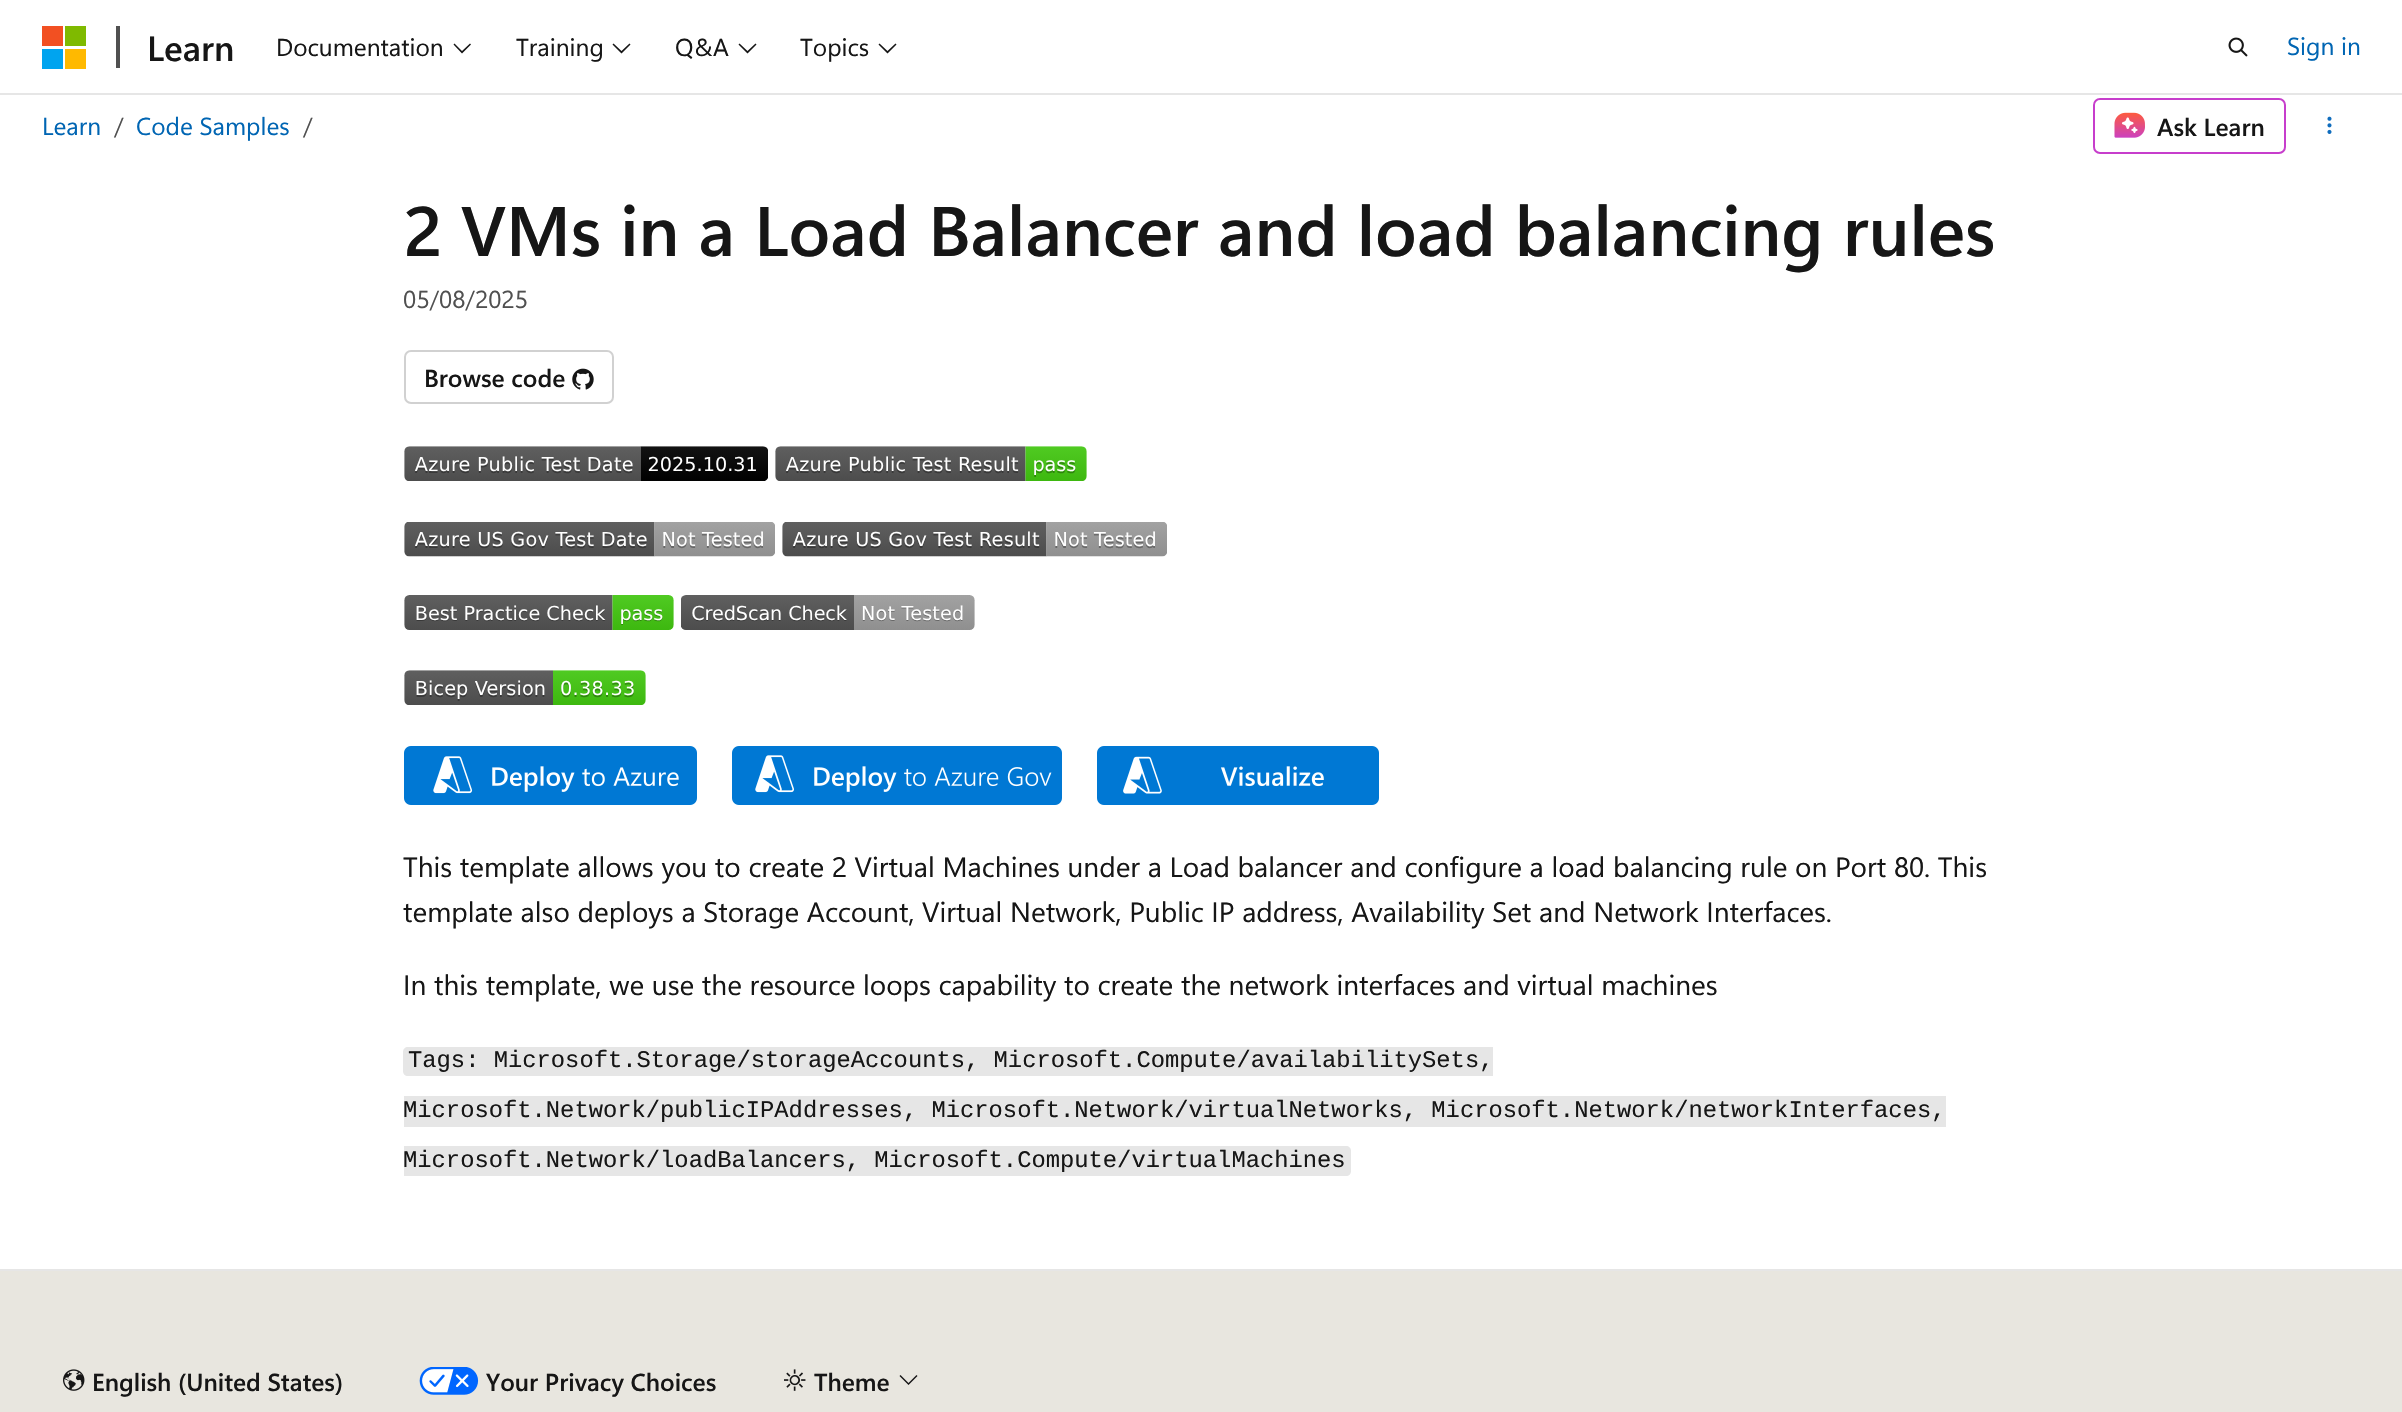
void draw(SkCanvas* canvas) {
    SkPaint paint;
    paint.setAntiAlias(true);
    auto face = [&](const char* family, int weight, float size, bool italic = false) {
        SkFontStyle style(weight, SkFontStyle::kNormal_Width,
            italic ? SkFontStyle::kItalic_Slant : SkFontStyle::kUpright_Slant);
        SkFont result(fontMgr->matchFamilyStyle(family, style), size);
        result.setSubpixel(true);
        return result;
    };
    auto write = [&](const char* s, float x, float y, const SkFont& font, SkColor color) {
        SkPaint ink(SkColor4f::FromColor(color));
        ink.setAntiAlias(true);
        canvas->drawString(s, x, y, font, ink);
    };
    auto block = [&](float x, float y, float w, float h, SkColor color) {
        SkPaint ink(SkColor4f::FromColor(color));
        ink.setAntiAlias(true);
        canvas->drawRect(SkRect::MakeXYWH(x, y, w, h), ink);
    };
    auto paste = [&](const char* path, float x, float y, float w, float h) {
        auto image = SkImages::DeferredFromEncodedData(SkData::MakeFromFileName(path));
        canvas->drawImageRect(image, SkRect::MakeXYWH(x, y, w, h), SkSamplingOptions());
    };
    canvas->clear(SK_ColorWHITE);
    block(0, 93, 2402, 2, SkColorSetRGB(230, 230, 230));
    block(42, 26, 21, 20, SkColorSetRGB(242, 80, 34));
    block(65, 26, 21, 20, SkColorSetRGB(127, 186, 0));
    block(42, 49, 21, 20, SkColorSetRGB(0, 164, 239));
    block(65, 49, 21, 20, SkColorSetRGB(255, 185, 0));
    block(116, 26, 4, 42, SkColorSetRGB(80, 80, 80));
    auto kFont1 = face("Segoe UI", 600, 35);
    write("Learn", 147, 61, kFont1, SkColorSetRGB(22, 22, 22));
    auto kFont2 = face("Segoe UI", 400, 24.5f);
    write("Documentation", 276, 56, kFont2, SkColorSetRGB(22, 22, 22));
    paint.setColor(SkColorSetRGB(22, 22, 22));
    canvas->drawPath(SkPathBuilder().moveTo(462, 53.5f).lineTo(453.5f, 44.5f).lineTo(454.5f, 43.5f).lineTo(462, 51).lineTo(470, 43.5f).lineTo(471, 44.5f).close().detach(), paint);
    write("Training", 516, 56, kFont2, SkColorSetRGB(22, 22, 22));
    canvas->drawPath(SkPathBuilder().moveTo(621.5f, 53.5f).lineTo(612.5f, 44.5f).lineTo(613.5f, 43.5f).lineTo(621.5f, 51).lineTo(629.5f, 43.5f).lineTo(630.5f, 44.5f).close().detach(), paint);
    write("Q&A", 675, 56, kFont2, SkColorSetRGB(22, 22, 22));
    canvas->drawPath(SkPathBuilder().moveTo(747.5f, 53.5f).lineTo(738.5f, 44.5f).lineTo(739.5f, 43.5f).lineTo(747.5f, 51).lineTo(755.5f, 43.5f).lineTo(756.5f, 44.5f).close().detach(), paint);
    write("Topics", 800, 56, kFont2, SkColorSetRGB(22, 22, 22));
    canvas->drawPath(SkPathBuilder().moveTo(887.5f, 53.5f).lineTo(878.5f, 44.5f).lineTo(879.5f, 43.5f).lineTo(887.5f, 51).lineTo(895.5f, 43.5f).lineTo(896.5f, 44.5f).close().detach(), paint);
    paste("pic1.png", 2228, 37, 20, 20);
    write("Sign in", 2287, 55, kFont2, SkColorSetRGB(0, 101, 179));
    write("Learn", 42, 135, kFont2, SkColorSetRGB(0, 101, 179));
    write("/", 114, 135, kFont2, SkColorSetRGB(80, 80, 80));
    write("Code Samples", 136, 135, kFont2, SkColorSetRGB(0, 101, 179));
    write("/", 303, 135, kFont2, SkColorSetRGB(80, 80, 80));
    paint.setStyle(SkPaint::kStroke_Style);
    paint.setStrokeWidth(2);
    paint.setColor(SkColorSetRGB(199, 62, 204));
    canvas->drawRoundRect(SkRect::MakeXYWH(2094, 99, 191, 54), 6, 6, paint);
    paste("pic2.png", 2114, 112, 31, 26);
    auto kFont3 = face("Segoe UI", 600, 24.5f);
    write("Ask Learn", 2157, 136, kFont3, SkColorSetRGB(22, 22, 22));
    paste("pic3.png", 2327, 116, 5, 18);
    auto kFont4 = face("Segoe UI", 600, 70);
    write("2 VMs in a Load Balancer and load balancing rules", 403, 256, kFont4, SkColorSetRGB(22, 22, 22));
    write("05/08/2025", 403, 308, kFont2, SkColorSetRGB(80, 80, 80));
    paint.setColor(SkColorSetRGB(209, 209, 209));
    canvas->drawRoundRect(SkRect::MakeXYWH(405, 351, 208, 52), 6, 6, paint);
    write("Browse code", 424, 387, kFont3, SkColorSetRGB(22, 22, 22));
    paste("pic4.png", 572, 368, 22, 22);
    paste("pic5.png", 404, 446, 364, 35);
    paste("pic6.png", 775, 446, 312, 35);
    paste("pic7.png", 404, 522, 371, 35);
    paste("pic8.png", 782, 522, 385, 35);
    paste("pic9.png", 404, 595, 270, 35);
    paste("pic10.png", 681, 595, 294, 35);
    paste("pic11.png", 404, 670, 242, 35);
    paste("pic12.png", 404, 746, 293, 59);
    paste("pic13.png", 732, 746, 330, 59);
    paste("pic14.png", 1097, 746, 282, 59);
    auto kFont5 = face("Segoe UI", 400, 28);
    write("This template allows you to create 2 Virtual Machines under a Load balancer and configure a load balancing rule on Port 80. This", 403, 877, kFont5, SkColorSetRGB(22, 22, 22));
    write("template also deploys a Storage Account, Virtual Network, Public IP address, Availability Set and Network Interfaces.", 403, 922, kFont5, SkColorSetRGB(22, 22, 22));
    write("In this template, we use the resource loops capability to create the network interfaces and virtual machines", 403, 995, kFont5, SkColorSetRGB(22, 22, 22));
    paint.setStyle(SkPaint::kFill_Style);
    paint.setColor(SkColorSetRGB(230, 230, 230));
    canvas->drawPath(SkPathBuilder().moveTo(408, 1047).lineTo(1493, 1047).lineTo(1493, 1076).lineTo(408, 1076).cubicTo(405, 1076, 403, 1074, 403, 1071).lineTo(403, 1052).cubicTo(403, 1049, 405, 1047, 408, 1047).close().detach(), paint);
    auto kFont6 = face("Liberation Mono", 400, 23.8f);
    write("Tags: Microsoft.Storage/storageAccounts, Microsoft.Compute/availabilitySets,", 408, 1067, kFont6, SkColorSetRGB(22, 22, 22));
    block(404, 1096, 1542, 31, SkColorSetRGB(230, 230, 230));
    write("Microsoft.Network/publicIPAddresses, Microsoft.Network/virtualNetworks, Microsoft.Network/networkInterfaces,", 403, 1117, kFont6, SkColorSetRGB(22, 22, 22));
    canvas->drawPath(SkPathBuilder().moveTo(404, 1146).lineTo(1346, 1146).cubicTo(1349, 1146, 1351, 1148, 1351, 1151).lineTo(1351, 1171).cubicTo(1351, 1174, 1349, 1176, 1346, 1176).lineTo(404, 1176).close().detach(), paint);
    write("Microsoft.Network/loadBalancers, Microsoft.Compute/virtualMachines", 403, 1167, kFont6, SkColorSetRGB(22, 22, 22));
    block(0, 1271, 2402, 141, SkColorSetRGB(232, 230, 223));
    block(0, 1269, 2402, 2, SkColorSetRGB(230, 230, 230));
    paste("pic15.png", 63, 1369, 22, 22);
    write("English (United States)", 92, 1391, kFont3, SkColorSetRGB(22, 22, 22));
    paste("pic16.png", 419, 1367, 60, 28);
    write("Your Privacy Choices", 486, 1391, kFont3, SkColorSetRGB(22, 22, 22));
    paste("pic17.png", 784, 1369, 22, 22);
    write("Theme", 814, 1391, kFont3, SkColorSetRGB(22, 22, 22));
    paint.setColor(SkColorSetRGB(22, 22, 22));
    canvas->drawPath(SkPathBuilder().moveTo(908.5f, 1385).lineTo(899.5f, 1376).lineTo(900.5f, 1375).lineTo(908.5f, 1383).lineTo(916.5f, 1375).lineTo(917.5f, 1376).close().detach(), paint);
}
